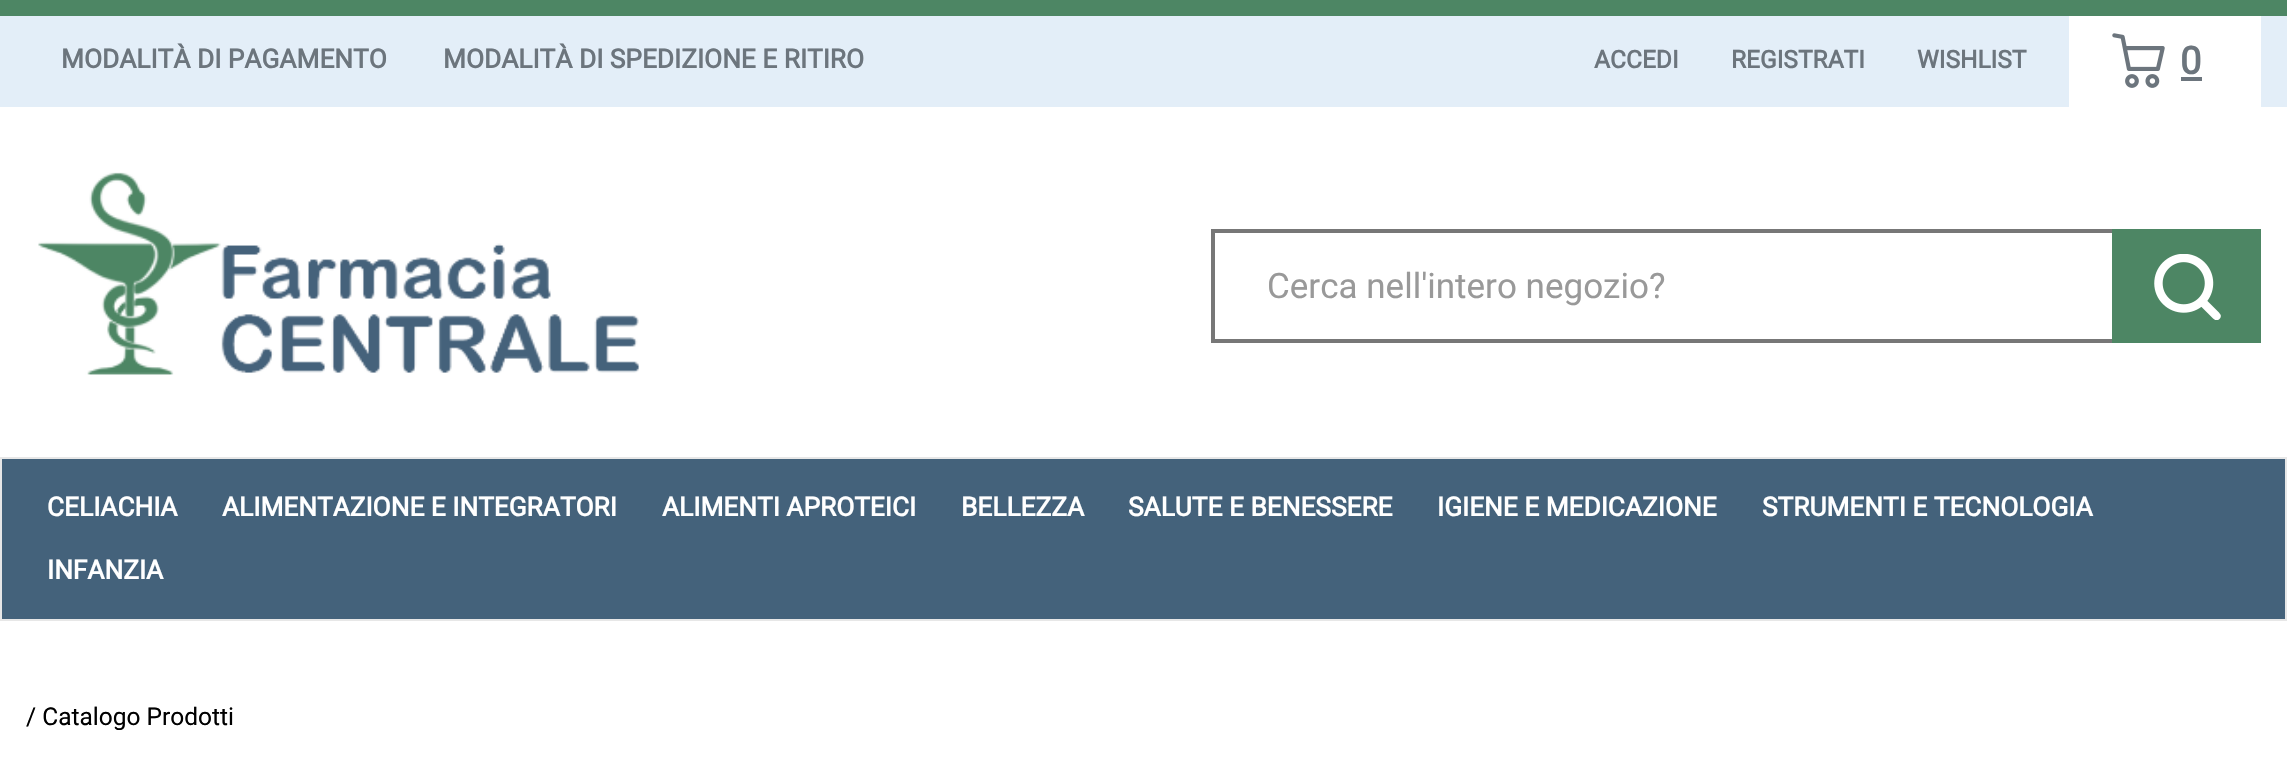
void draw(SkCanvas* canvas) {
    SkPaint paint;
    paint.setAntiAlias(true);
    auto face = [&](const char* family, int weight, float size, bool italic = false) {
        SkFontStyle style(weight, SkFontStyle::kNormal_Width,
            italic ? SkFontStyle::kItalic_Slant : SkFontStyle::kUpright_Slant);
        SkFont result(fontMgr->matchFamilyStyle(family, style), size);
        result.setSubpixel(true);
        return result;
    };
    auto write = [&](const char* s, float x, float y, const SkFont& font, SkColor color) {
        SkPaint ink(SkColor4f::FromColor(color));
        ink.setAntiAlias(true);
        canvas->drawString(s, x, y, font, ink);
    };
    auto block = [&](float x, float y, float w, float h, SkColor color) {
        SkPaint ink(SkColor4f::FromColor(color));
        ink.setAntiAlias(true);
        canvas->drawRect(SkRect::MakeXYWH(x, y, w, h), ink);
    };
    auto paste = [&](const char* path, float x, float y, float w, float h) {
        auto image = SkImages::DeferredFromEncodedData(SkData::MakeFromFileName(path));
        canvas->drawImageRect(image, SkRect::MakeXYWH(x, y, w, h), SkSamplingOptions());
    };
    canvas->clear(SK_ColorWHITE);
    block(0, 0, 2287, 16, SkColorSetRGB(77, 134, 100));
    block(0, 16, 2287, 91, SkColorSetRGB(227, 238, 248));
    auto kFont1 = face("Roboto", 700, 26.25f);
    write("MODALITÀ DI PAGAMENTO", 61, 68, kFont1, SkColorSetRGB(108, 117, 125));
    write("MODALITÀ DI SPEDIZIONE E RITIRO", 443, 68, kFont1, SkColorSetRGB(108, 117, 125));
    auto kFont2 = face("Roboto", 700, 24.5f);
    write("ACCEDI", 1594, 68, kFont2, SkColorSetRGB(108, 117, 125));
    write("REGISTRATI", 1731, 68, kFont2, SkColorSetRGB(108, 117, 125));
    write("WISHLIST", 1917, 68, kFont2, SkColorSetRGB(108, 117, 125));
    block(2069, 16, 192, 91, SK_ColorWHITE);
    paste("pic1.png", 2112, 33, 53, 55);
    auto kFont3 = face("Roboto", 700, 38);
    write("0", 2180, 74, kFont3, SkColorSetRGB(108, 117, 125));
    block(2181, 77, 21, 4, SkColorSetRGB(108, 117, 125));
    paste("pic2.png", 38, 172, 602, 203);
    paint.setStyle(SkPaint::kStroke_Style);
    paint.setStrokeWidth(4);
    paint.setColor(SkColorSetRGB(119, 119, 119));
    canvas->drawRect(SkRect::MakeXYWH(1213, 231, 934, 110), paint);
    auto kFont4 = face("Roboto", 400, 35);
    write("Cerca nell'intero negozio?", 1267, 298, kFont4, SkColorSetRGB(153, 153, 153));
    block(2112, 229, 149, 114, SkColorSetRGB(77, 134, 100));
    paste("pic3.png", 2154, 254, 67, 66);
    paint.setStyle(SkPaint::kFill_Style);
    paint.setColor(SkColorSetRGB(68, 98, 123));
    canvas->drawRect(SkRect::MakeXYWH(1, 458, 2285, 162), paint);
    paint.setStyle(SkPaint::kStroke_Style);
    paint.setStrokeWidth(2);
    paint.setColor(SkColorSetRGB(231, 231, 231));
    canvas->drawRect(SkRect::MakeXYWH(1, 458, 2285, 162), paint);
    write("CELIACHIA", 47, 516, kFont1, SK_ColorWHITE);
    write("ALIMENTAZIONE E INTEGRATORI", 222, 516, kFont1, SK_ColorWHITE);
    write("ALIMENTI APROTEICI", 662, 516, kFont1, SK_ColorWHITE);
    write("BELLEZZA", 961, 516, kFont1, SK_ColorWHITE);
    write("SALUTE E BENESSERE", 1128, 516, kFont1, SK_ColorWHITE);
    write("IGIENE E MEDICAZIONE", 1437, 516, kFont1, SK_ColorWHITE);
    write("STRUMENTI E TECNOLOGIA", 1762, 516, kFont1, SK_ColorWHITE);
    write("INFANZIA", 47, 579, kFont1, SK_ColorWHITE);
    auto kFont5 = face("Roboto", 400, 24.5f);
    write("/ Catalogo Prodotti", 26, 725, kFont5, SK_ColorBLACK);
}
